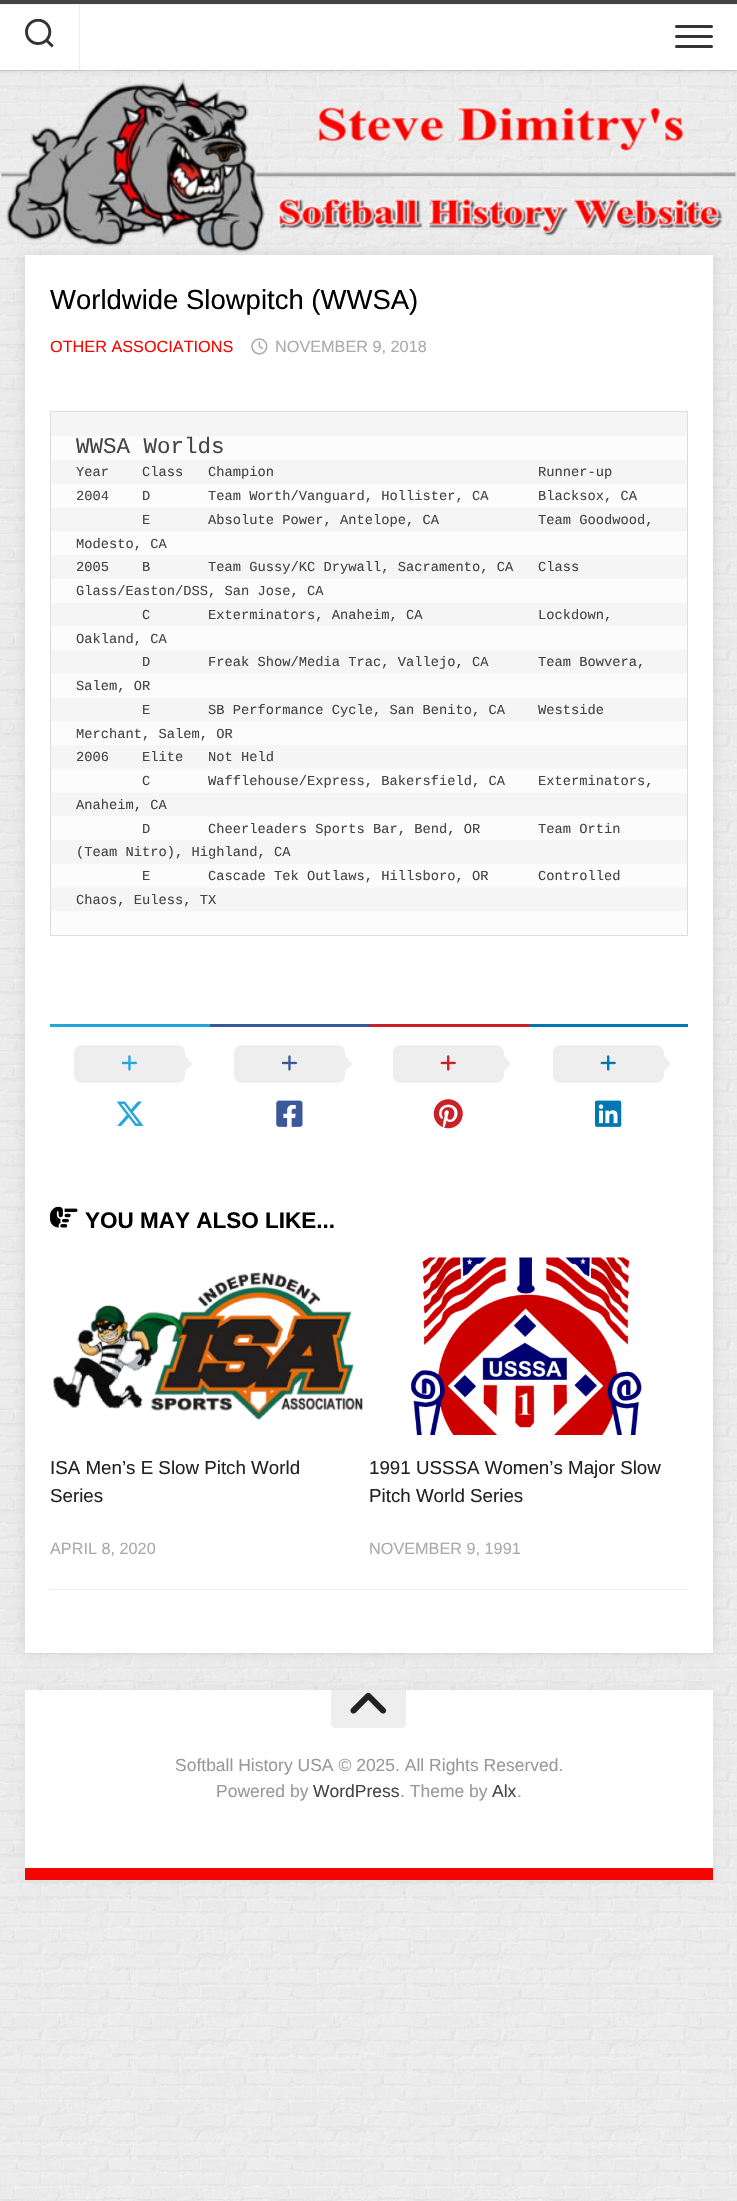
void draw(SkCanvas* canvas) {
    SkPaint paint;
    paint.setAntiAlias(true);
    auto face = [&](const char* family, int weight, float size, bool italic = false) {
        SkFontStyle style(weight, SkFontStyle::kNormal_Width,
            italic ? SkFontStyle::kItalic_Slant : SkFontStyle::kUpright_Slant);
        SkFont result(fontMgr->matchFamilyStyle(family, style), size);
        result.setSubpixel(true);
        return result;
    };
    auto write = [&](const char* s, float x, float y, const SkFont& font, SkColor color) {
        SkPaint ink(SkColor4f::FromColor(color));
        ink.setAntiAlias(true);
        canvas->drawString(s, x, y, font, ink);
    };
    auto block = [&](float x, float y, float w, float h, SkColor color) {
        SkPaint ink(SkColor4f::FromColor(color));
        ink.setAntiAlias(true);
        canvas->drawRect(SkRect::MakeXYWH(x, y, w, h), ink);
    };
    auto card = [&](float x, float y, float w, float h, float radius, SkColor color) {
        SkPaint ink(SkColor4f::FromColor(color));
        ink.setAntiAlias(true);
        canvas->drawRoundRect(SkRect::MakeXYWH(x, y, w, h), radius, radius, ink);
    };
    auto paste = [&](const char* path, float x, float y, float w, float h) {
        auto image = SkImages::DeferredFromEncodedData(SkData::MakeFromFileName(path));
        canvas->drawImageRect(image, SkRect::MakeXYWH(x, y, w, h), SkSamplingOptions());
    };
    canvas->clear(SK_ColorWHITE);
    paste("pic1.png", 0, 70, 737, 2131);
    paste("pic3.png", 1, 78, 736, 175);
    paint.setColor(SkColorSetARGB(10, 0, 0, 0));
    paint.setMaskFilter(SkMaskFilter::MakeBlur(kNormal_SkBlurStyle, 2));
    canvas->drawRect(SkRect::MakeXYWH(0, 4, 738, 70), paint);
    paint.setMaskFilter(nullptr);
    paint.setColor(SkColorSetARGB(26, 0, 0, 0));
    canvas->drawPath(SkPathBuilder().moveTo(0, 70).lineTo(0, 71).lineTo(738, 71).lineTo(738, 1).lineTo(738, 70).close().detach(), paint);
    block(0, 5, 737, 65, SK_ColorWHITE);
    block(0, 0, 737, 4, SkColorSetRGB(68, 68, 68));
    block(0, 4, 737, 1, SkColorSetRGB(242, 242, 242));
    card(675, 25, 38, 3, 1.5f, SkColorSetRGB(51, 51, 51));
    card(675, 35, 38, 3, 1.5f, SkColorSetRGB(51, 51, 51));
    card(675, 45, 38, 3, 1.5f, SkColorSetRGB(51, 51, 51));
    block(79, 4, 1, 66, SkColorSetRGB(238, 238, 238));
    paste("pic2.png", 25, 19, 29, 29);
    paint.setMaskFilter(SkMaskFilter::MakeBlur(kNormal_SkBlurStyle, 6));
    canvas->drawRect(SkRect::MakeXYWH(25, 255, 688, 1398), paint);
    paint.setMaskFilter(nullptr);
    block(25, 255, 688, 1398, SK_ColorWHITE);
    auto kFont1 = face("Liberation Sans", 400, 27.5f);
    write("Worldwide Slowpitch (WWSA)", 50, 309, kFont1, SK_ColorBLACK);
    auto kFont2 = face("Liberation Sans", 400, 16.25f);
    write("OTHER ASSOCIATIONS", 50, 352, kFont2, SkColorSetRGB(245, 5, 0));
    paste("pic4.png", 251, 338, 17, 17);
    write("NOVEMBER 9, 2018", 275, 352, kFont2, SkColorSetRGB(170, 170, 170));
    paste("pic5.png", 51, 412, 636, 523);
    paint.setStyle(SkPaint::kStroke_Style);
    paint.setStrokeWidth(1);
    paint.setColor(SkColorSetRGB(221, 221, 221));
    canvas->drawRect(SkRect::MakeXYWH(50.5f, 411.5f, 637, 524), paint);
    auto kFont3 = face("Liberation Mono", 400, 22.5f);
    write("WWSA Worlds", 76, 453, kFont3, SkColorSetRGB(68, 68, 68));
    auto kFont4 = face("Liberation Mono", 400, 13.75f);
    write("Year", 76, 476, kFont4, SkColorSetRGB(68, 68, 68));
    write("Class", 142, 476, kFont4, SkColorSetRGB(68, 68, 68));
    write("Champion", 208, 476, kFont4, SkColorSetRGB(68, 68, 68));
    write("Runner-up", 538, 476, kFont4, SkColorSetRGB(68, 68, 68));
    write("2004", 76, 500, kFont4, SkColorSetRGB(68, 68, 68));
    write("D", 142, 500, kFont4, SkColorSetRGB(68, 68, 68));
    write("Team Worth/Vanguard, Hollister, CA", 208, 500, kFont4, SkColorSetRGB(68, 68, 68));
    write("Blacksox, CA", 538, 500, kFont4, SkColorSetRGB(68, 68, 68));
    write("E", 142, 524, kFont4, SkColorSetRGB(68, 68, 68));
    write("Absolute Power, Antelope, CA", 208, 524, kFont4, SkColorSetRGB(68, 68, 68));
    write("Team Goodwood,", 538, 524, kFont4, SkColorSetRGB(68, 68, 68));
    write("Modesto, CA", 76, 548, kFont4, SkColorSetRGB(68, 68, 68));
    write("2005", 76, 571, kFont4, SkColorSetRGB(68, 68, 68));
    write("B", 142, 571, kFont4, SkColorSetRGB(68, 68, 68));
    write("Team Gussy/KC Drywall, Sacramento, CA", 208, 571, kFont4, SkColorSetRGB(68, 68, 68));
    write("Class", 538, 571, kFont4, SkColorSetRGB(68, 68, 68));
    write("Glass/Easton/DSS, San Jose, CA", 76, 595, kFont4, SkColorSetRGB(68, 68, 68));
    write("C", 142, 619, kFont4, SkColorSetRGB(68, 68, 68));
    write("Exterminators, Anaheim, CA", 208, 619, kFont4, SkColorSetRGB(68, 68, 68));
    write("Lockdown,", 538, 619, kFont4, SkColorSetRGB(68, 68, 68));
    write("Oakland, CA", 76, 643, kFont4, SkColorSetRGB(68, 68, 68));
    write("D", 142, 666, kFont4, SkColorSetRGB(68, 68, 68));
    write("Freak Show/Media Trac, Vallejo, CA", 208, 666, kFont4, SkColorSetRGB(68, 68, 68));
    write("Team Bowvera,", 538, 666, kFont4, SkColorSetRGB(68, 68, 68));
    write("Salem, OR", 76, 690, kFont4, SkColorSetRGB(68, 68, 68));
    write("E", 142, 714, kFont4, SkColorSetRGB(68, 68, 68));
    write("SB Performance Cycle, San Benito, CA", 208, 714, kFont4, SkColorSetRGB(68, 68, 68));
    write("Westside", 538, 714, kFont4, SkColorSetRGB(68, 68, 68));
    write("Merchant, Salem, OR", 76, 738, kFont4, SkColorSetRGB(68, 68, 68));
    write("2006", 76, 761, kFont4, SkColorSetRGB(68, 68, 68));
    write("Elite", 142, 761, kFont4, SkColorSetRGB(68, 68, 68));
    write("Not Held", 208, 761, kFont4, SkColorSetRGB(68, 68, 68));
    write("C", 142, 785, kFont4, SkColorSetRGB(68, 68, 68));
    write("Wafflehouse/Express, Bakersfield, CA", 208, 785, kFont4, SkColorSetRGB(68, 68, 68));
    write("Exterminators,", 538, 785, kFont4, SkColorSetRGB(68, 68, 68));
    write("Anaheim, CA", 76, 809, kFont4, SkColorSetRGB(68, 68, 68));
    write("D", 142, 833, kFont4, SkColorSetRGB(68, 68, 68));
    write("Cheerleaders Sports Bar, Bend, OR", 208, 833, kFont4, SkColorSetRGB(68, 68, 68));
    write("Team Ortin", 538, 833, kFont4, SkColorSetRGB(68, 68, 68));
    write("(Team Nitro), Highland, CA", 76, 856, kFont4, SkColorSetRGB(68, 68, 68));
    write("E", 142, 880, kFont4, SkColorSetRGB(68, 68, 68));
    write("Cascade Tek Outlaws, Hillsboro, OR", 208, 880, kFont4, SkColorSetRGB(68, 68, 68));
    write("Controlled", 538, 880, kFont4, SkColorSetRGB(68, 68, 68));
    write("Chaos, Euless, TX", 76, 904, kFont4, SkColorSetRGB(68, 68, 68));
    block(50, 1024, 160, 3, SkColorSetRGB(36, 165, 219));
    card(74, 1045, 111, 38, 8, SkColorSetRGB(238, 238, 238));
    paste("pic6.png", 121, 1055, 16, 16);
    paint.setStyle(SkPaint::kFill_Style);
    paint.setColor(SkColorSetRGB(238, 238, 238));
    canvas->drawPath(SkPathBuilder().moveTo(185, 1071).lineTo(185, 1056).lineTo(192.5f, 1064).close().detach(), paint);
    paste("pic7.png", 116, 1101, 28, 25);
    block(210, 1024, 159, 3, SkColorSetRGB(59, 89, 152));
    card(234, 1045, 111, 38, 8, SkColorSetRGB(238, 238, 238));
    paste("pic8.png", 281, 1055, 16, 16);
    canvas->drawPath(SkPathBuilder().moveTo(345, 1071).lineTo(345, 1056).lineTo(352.5f, 1064).close().detach(), paint);
    paste("pic9.png", 276, 1100, 27, 27);
    block(369, 1024, 160, 3, SkColorSetRGB(202, 33, 40));
    card(393, 1045, 111, 38, 8, SkColorSetRGB(238, 238, 238));
    paste("pic10.png", 440, 1055, 16, 16);
    canvas->drawPath(SkPathBuilder().moveTo(504, 1071).lineTo(504, 1056).lineTo(511, 1064).close().detach(), paint);
    paste("pic11.png", 433, 1099, 30, 30);
    block(529, 1024, 159, 3, SkColorSetRGB(0, 119, 181));
    card(553, 1045, 111, 38, 8, SkColorSetRGB(238, 238, 238));
    paste("pic12.png", 600, 1055, 16, 16);
    canvas->drawPath(SkPathBuilder().moveTo(664, 1071).lineTo(664, 1056).lineTo(671, 1064).close().detach(), paint);
    paste("pic13.png", 595, 1100, 27, 27);
    paste("pic14.png", 50, 1206, 28, 22);
    auto kFont5 = face("Liberation Sans", 700, 22.5f);
    write("YOU MAY ALSO LIKE...", 85, 1228, kFont5, SK_ColorBLACK);
    block(50, 1589, 638, 1, SkColorSetRGB(238, 238, 238));
    paste("pic15.png", 53, 1272, 310, 149);
    auto kFont6 = face("Liberation Sans", 400, 18.75f);
    write("ISA Men’s E Slow Pitch World", 50, 1474, kFont6, SkColorSetRGB(34, 34, 34));
    write("Series", 50, 1502, kFont6, SkColorSetRGB(34, 34, 34));
    write("APRIL 8, 2020", 50, 1554, kFont2, SkColorSetRGB(170, 170, 170));
    paste("pic16.png", 411, 1257, 231, 178);
    write("1991 USSSA Women’s Major Slow", 369, 1474, kFont6, SkColorSetRGB(34, 34, 34));
    write("Pitch World Series", 369, 1502, kFont6, SkColorSetRGB(34, 34, 34));
    write("NOVEMBER 9, 1991", 369, 1554, kFont2, SkColorSetRGB(170, 170, 170));
    paint.setColor(SkColorSetARGB(13, 0, 0, 0));
    paint.setMaskFilter(SkMaskFilter::MakeBlur(kNormal_SkBlurStyle, 6));
    canvas->drawRect(SkRect::MakeXYWH(25, 1690, 688, 190), paint);
    paint.setMaskFilter(nullptr);
    block(25, 1690, 688, 178, SK_ColorWHITE);
    block(25, 1868, 688, 12, SkColorSetRGB(245, 5, 0));
    paint.setColor(SkColorSetRGB(238, 238, 238));
    canvas->drawPath(SkPathBuilder().moveTo(331, 1690).lineTo(406, 1690).lineTo(406, 1724).cubicTo(406, 1726, 404, 1728, 402, 1728).lineTo(335, 1728).cubicTo(333, 1728, 331, 1726, 331, 1724).close().detach(), paint);
    paste("pic17.png", 350, 1692, 37, 22);
    auto kFont7 = face("Liberation Sans", 400, 17.5f);
    write("Softball History USA © 2025. All Rights Reserved.", 175, 1771, kFont7, SkColorSetRGB(153, 153, 153));
    write("Powered by", 216, 1797, kFont7, SkColorSetRGB(153, 153, 153));
    write("WordPress", 313, 1797, kFont7, SkColorSetRGB(68, 68, 68));
    write(". Theme by", 400, 1797, kFont7, SkColorSetRGB(153, 153, 153));
    write("Alx", 492, 1797, kFont7, SkColorSetRGB(68, 68, 68));
    write(".", 517, 1797, kFont7, SkColorSetRGB(153, 153, 153));
}
